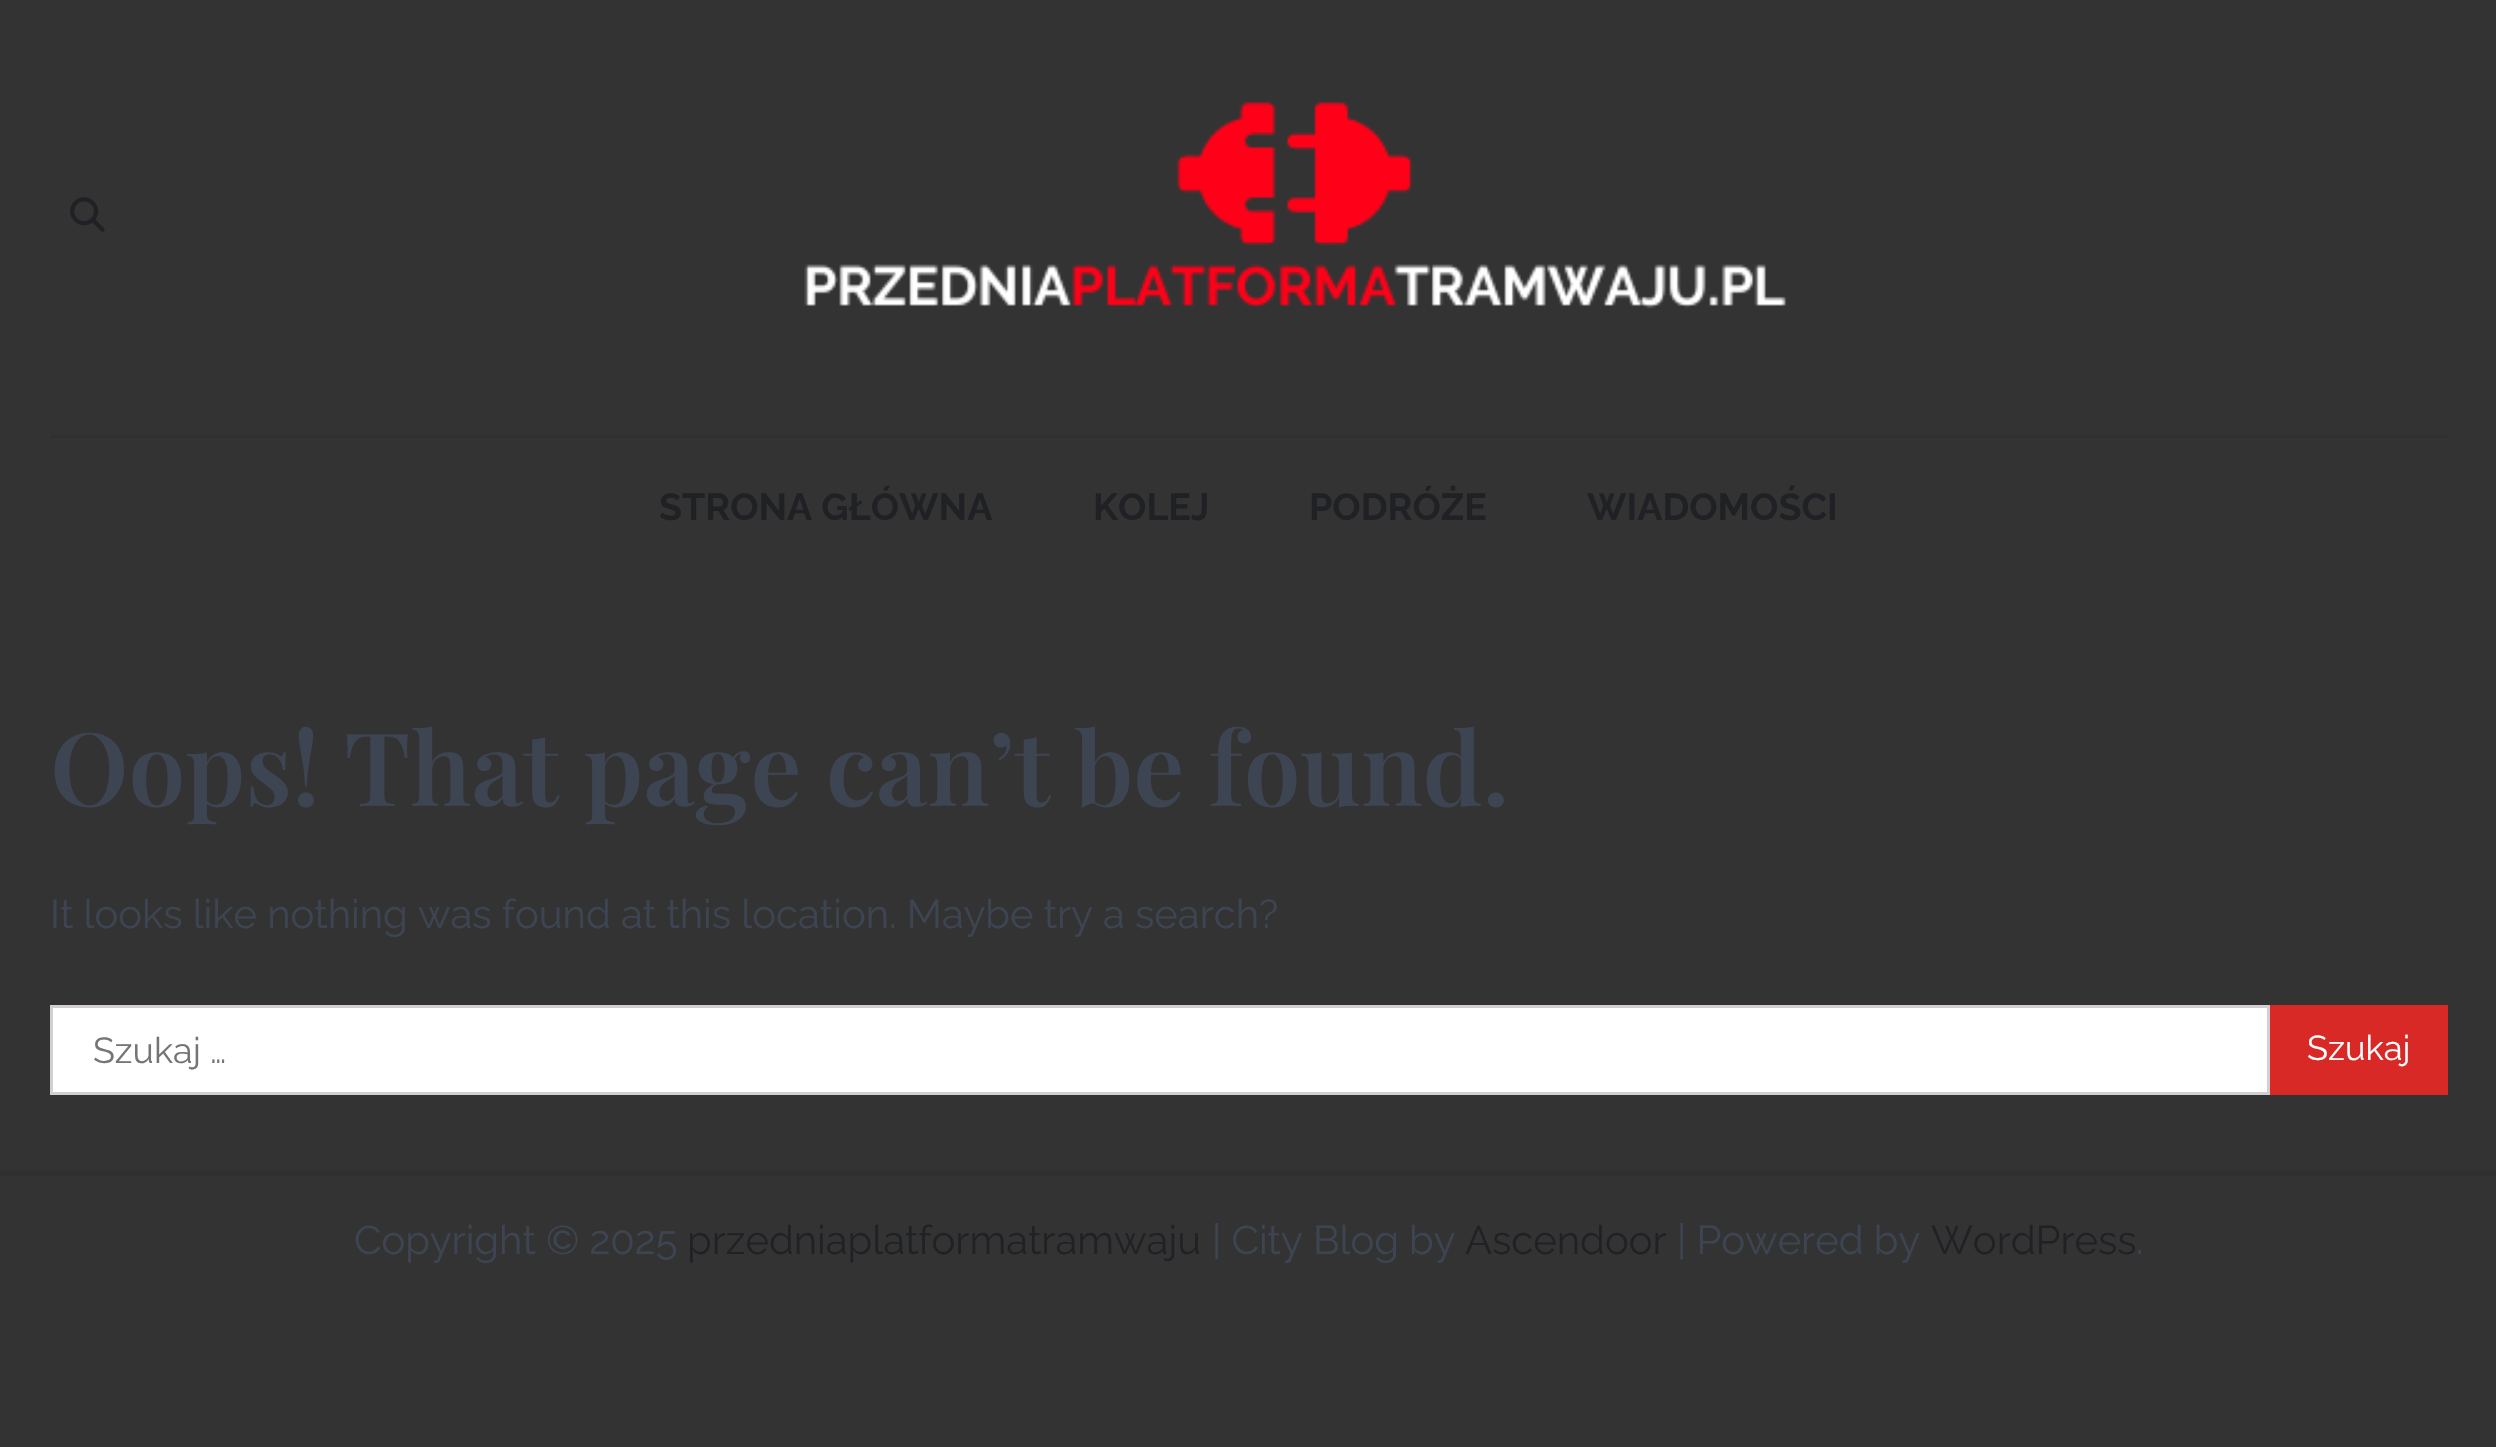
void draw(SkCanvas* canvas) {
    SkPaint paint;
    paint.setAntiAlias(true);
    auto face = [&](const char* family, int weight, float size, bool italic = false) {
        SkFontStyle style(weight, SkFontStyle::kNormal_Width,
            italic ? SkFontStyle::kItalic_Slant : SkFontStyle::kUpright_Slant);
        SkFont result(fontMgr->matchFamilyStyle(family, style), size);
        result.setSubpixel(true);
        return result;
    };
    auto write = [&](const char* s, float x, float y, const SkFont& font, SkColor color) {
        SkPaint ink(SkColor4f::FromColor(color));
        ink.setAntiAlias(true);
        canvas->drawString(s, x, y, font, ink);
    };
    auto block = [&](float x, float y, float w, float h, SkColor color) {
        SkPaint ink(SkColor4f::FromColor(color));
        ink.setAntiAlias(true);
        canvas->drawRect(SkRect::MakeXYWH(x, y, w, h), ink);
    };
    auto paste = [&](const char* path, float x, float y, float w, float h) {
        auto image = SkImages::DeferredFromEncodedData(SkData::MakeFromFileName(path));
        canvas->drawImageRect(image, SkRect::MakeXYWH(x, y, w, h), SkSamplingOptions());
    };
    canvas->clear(SkColorSetRGB(51, 51, 51));
    paste("pic1.png", 70, 197, 35, 35);
    paste("pic2.png", 804, 101, 982, 208);
    block(50, 435, 2398, 3, SkColorSetRGB(48, 48, 49));
    auto kFont1 = face("Raleway", 700, 37.5f);
    write("STRONA GŁÓWNA", 659, 520, kFont1, SkColorSetRGB(32, 33, 36));
    write("KOLEJ", 1093, 520, kFont1, SkColorSetRGB(32, 33, 36));
    write("PODRÓŻE", 1309, 520, kFont1, SkColorSetRGB(32, 33, 36));
    write("WIADOMOŚCI", 1587, 520, kFont1, SkColorSetRGB(32, 33, 36));
    auto kFont2 = face("Playfair Display", 600, 101.4f);
    write("Oops! That page can’t be found.", 50, 806, kFont2, SkColorSetRGB(61, 68, 82));
    auto kFont3 = face("Raleway", 400, 40);
    write("It looks like nothing was found at this location. Maybe try a search?", 50, 928, kFont3, SkColorSetRGB(61, 68, 82));
    paint.setColor(SK_ColorWHITE);
    canvas->drawRect(SkRect::MakeXYWH(51.5f, 1006.5f, 2217, 87), paint);
    paint.setStyle(SkPaint::kStroke_Style);
    paint.setStrokeWidth(3);
    paint.setColor(SkColorSetRGB(211, 206, 210));
    canvas->drawRect(SkRect::MakeXYWH(51.5f, 1006.5f, 2217, 87), paint);
    auto kFont4 = face("Raleway", 400, 36);
    write("Szukaj …", 93, 1063, kFont4, SkColorSetRGB(117, 117, 117));
    block(2270, 1005, 178, 90, SkColorSetRGB(216, 41, 38));
    auto kFont5 = face("Raleway", 400, 34.5f);
    write("Szukaj", 2307, 1060, kFont5, SK_ColorWHITE);
    block(0, 1170, 2496, 6, SkColorSetRGB(48, 48, 49));
    write("Copyright © 2025", 354, 1254, kFont3, SkColorSetRGB(61, 68, 82));
    write("przedniaplatformatramwaju", 687, 1254, kFont3, SkColorSetRGB(32, 33, 36));
    write("| City Blog by", 1212, 1254, kFont3, SkColorSetRGB(61, 68, 82));
    write("Ascendoor", 1465, 1254, kFont3, SkColorSetRGB(32, 33, 36));
    write("| Powered by", 1677, 1254, kFont3, SkColorSetRGB(61, 68, 82));
    write("WordPress", 1931, 1254, kFont3, SkColorSetRGB(32, 33, 36));
    write(".", 2136, 1254, kFont3, SkColorSetRGB(61, 68, 82));
}
